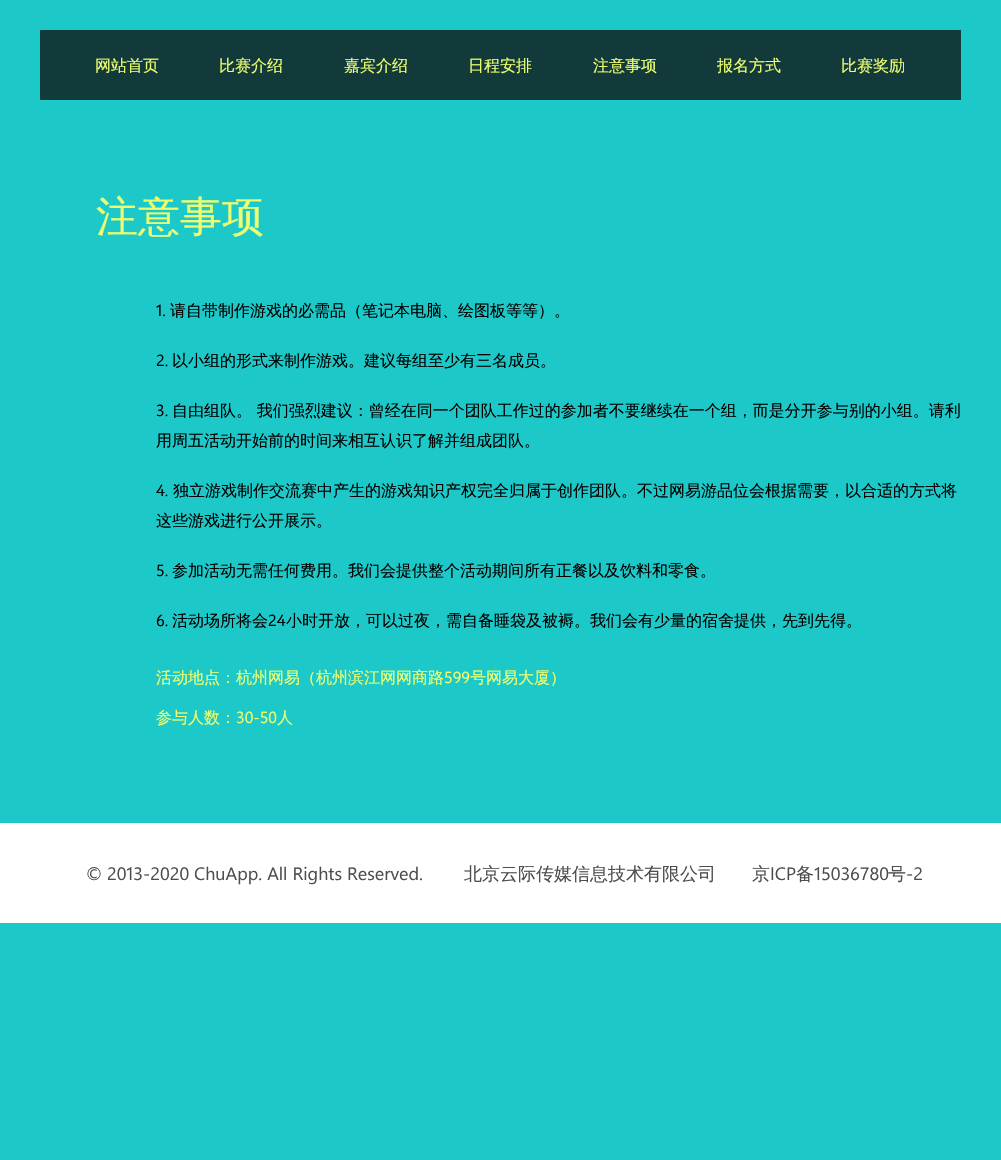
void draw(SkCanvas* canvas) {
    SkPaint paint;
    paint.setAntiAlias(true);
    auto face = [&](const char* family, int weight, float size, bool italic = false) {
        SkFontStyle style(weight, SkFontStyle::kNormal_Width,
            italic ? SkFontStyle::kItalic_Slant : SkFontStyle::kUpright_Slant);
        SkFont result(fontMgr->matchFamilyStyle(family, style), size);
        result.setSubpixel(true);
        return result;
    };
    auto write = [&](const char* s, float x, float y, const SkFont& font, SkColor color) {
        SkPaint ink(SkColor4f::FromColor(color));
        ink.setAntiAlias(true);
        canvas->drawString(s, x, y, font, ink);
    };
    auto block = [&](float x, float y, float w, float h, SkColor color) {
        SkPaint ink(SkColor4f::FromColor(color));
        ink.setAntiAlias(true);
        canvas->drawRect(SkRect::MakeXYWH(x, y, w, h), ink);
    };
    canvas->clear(SkColorSetRGB(29, 200, 200));
    block(40, 30, 921, 70, SkColorSetRGB(19, 58, 58));
    auto kFont1 = face("WenQuanYi Zen Hei", 500, 16);
    write("网站首页", 95, 71, kFont1, SkColorSetRGB(237, 255, 112));
    write("比赛介绍", 219, 71, kFont1, SkColorSetRGB(237, 255, 112));
    write("嘉宾介绍", 344, 71, kFont1, SkColorSetRGB(237, 255, 112));
    write("日程安排", 468, 71, kFont1, SkColorSetRGB(237, 255, 112));
    write("注意事项", 593, 71, kFont1, SkColorSetRGB(237, 255, 112));
    write("报名方式", 717, 71, kFont1, SkColorSetRGB(237, 255, 112));
    write("比赛奖励", 841, 71, kFont1, SkColorSetRGB(237, 255, 112));
    auto kFont2 = face("WenQuanYi Zen Hei", 500, 42);
    write("注意事项", 96, 231, kFont2, SkColorSetRGB(237, 255, 112));
    auto kFont3 = face("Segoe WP", 400, 16);
    write("1.", 156, 316, kFont3, SK_ColorBLACK);
    write("请自带制作游戏的必需品（笔记本电脑、绘图板等等）。", 170, 316, kFont1, SK_ColorBLACK);
    write("2.", 156, 366, kFont3, SK_ColorBLACK);
    write("以小组的形式来制作游戏。建议每组至少有三名成员。", 172, 366, kFont1, SK_ColorBLACK);
    write("3.", 156, 416, kFont3, SK_ColorBLACK);
    write("自由组队。 我们强烈建议：曾经在同一个团队工作过的参加者不要继续在一个组，而是分开参与别的小组。请利", 172, 416, kFont1, SK_ColorBLACK);
    write("用周五活动开始前的时间来相互认识了解并组成团队。", 156, 446, kFont1, SK_ColorBLACK);
    write("4.", 156, 496, kFont3, SK_ColorBLACK);
    write("独立游戏制作交流赛中产生的游戏知识产权完全归属于创作团队。不过网易游品位会根据需要，以合适的方式将", 173, 496, kFont1, SK_ColorBLACK);
    write("这些游戏进行公开展示。", 156, 526, kFont1, SK_ColorBLACK);
    write("5.", 156, 576, kFont3, SK_ColorBLACK);
    write("参加活动无需任何费用。我们会提供整个活动期间所有正餐以及饮料和零食。", 172, 576, kFont1, SK_ColorBLACK);
    write("6.", 156, 626, kFont3, SK_ColorBLACK);
    write("活动场所将会", 172, 626, kFont1, SK_ColorBLACK);
    write("24", 268, 626, kFont3, SK_ColorBLACK);
    write("小时开放，可以过夜，需自备睡袋及被褥。我们会有少量的宿舍提供，先到先得。", 286, 626, kFont1, SK_ColorBLACK);
    write("活动地点：杭州网易（杭州滨江网网商路", 156, 683, kFont1, SkColorSetRGB(237, 255, 112));
    write("599", 444, 683, kFont3, SkColorSetRGB(237, 255, 112));
    write("号网易大厦）", 470, 683, kFont1, SkColorSetRGB(237, 255, 112));
    write("参与人数：", 156, 723, kFont1, SkColorSetRGB(237, 255, 112));
    write("30-50", 236, 723, kFont3, SkColorSetRGB(237, 255, 112));
    write("人", 277, 723, kFont1, SkColorSetRGB(237, 255, 112));
    block(0, 823, 1001, 100, SK_ColorWHITE);
    auto kFont4 = face("Segoe WP", 400, 18);
    write("© 2013-2020 ChuApp. All Rights Reserved.", 86, 880, kFont4, SkColorSetRGB(77, 77, 77));
    auto kFont5 = face("WenQuanYi Zen Hei", 500, 18);
    write("北京云际传媒信息技术有限公司　　京", 464, 880, kFont5, SkColorSetRGB(77, 77, 77));
    write("ICP", 770, 880, kFont4, SkColorSetRGB(77, 77, 77));
    write("备", 796, 880, kFont5, SkColorSetRGB(77, 77, 77));
    write("15036780", 814, 880, kFont4, SkColorSetRGB(77, 77, 77));
    write("号", 888, 880, kFont5, SkColorSetRGB(77, 77, 77));
    write("-2", 906, 880, kFont4, SkColorSetRGB(77, 77, 77));
}
